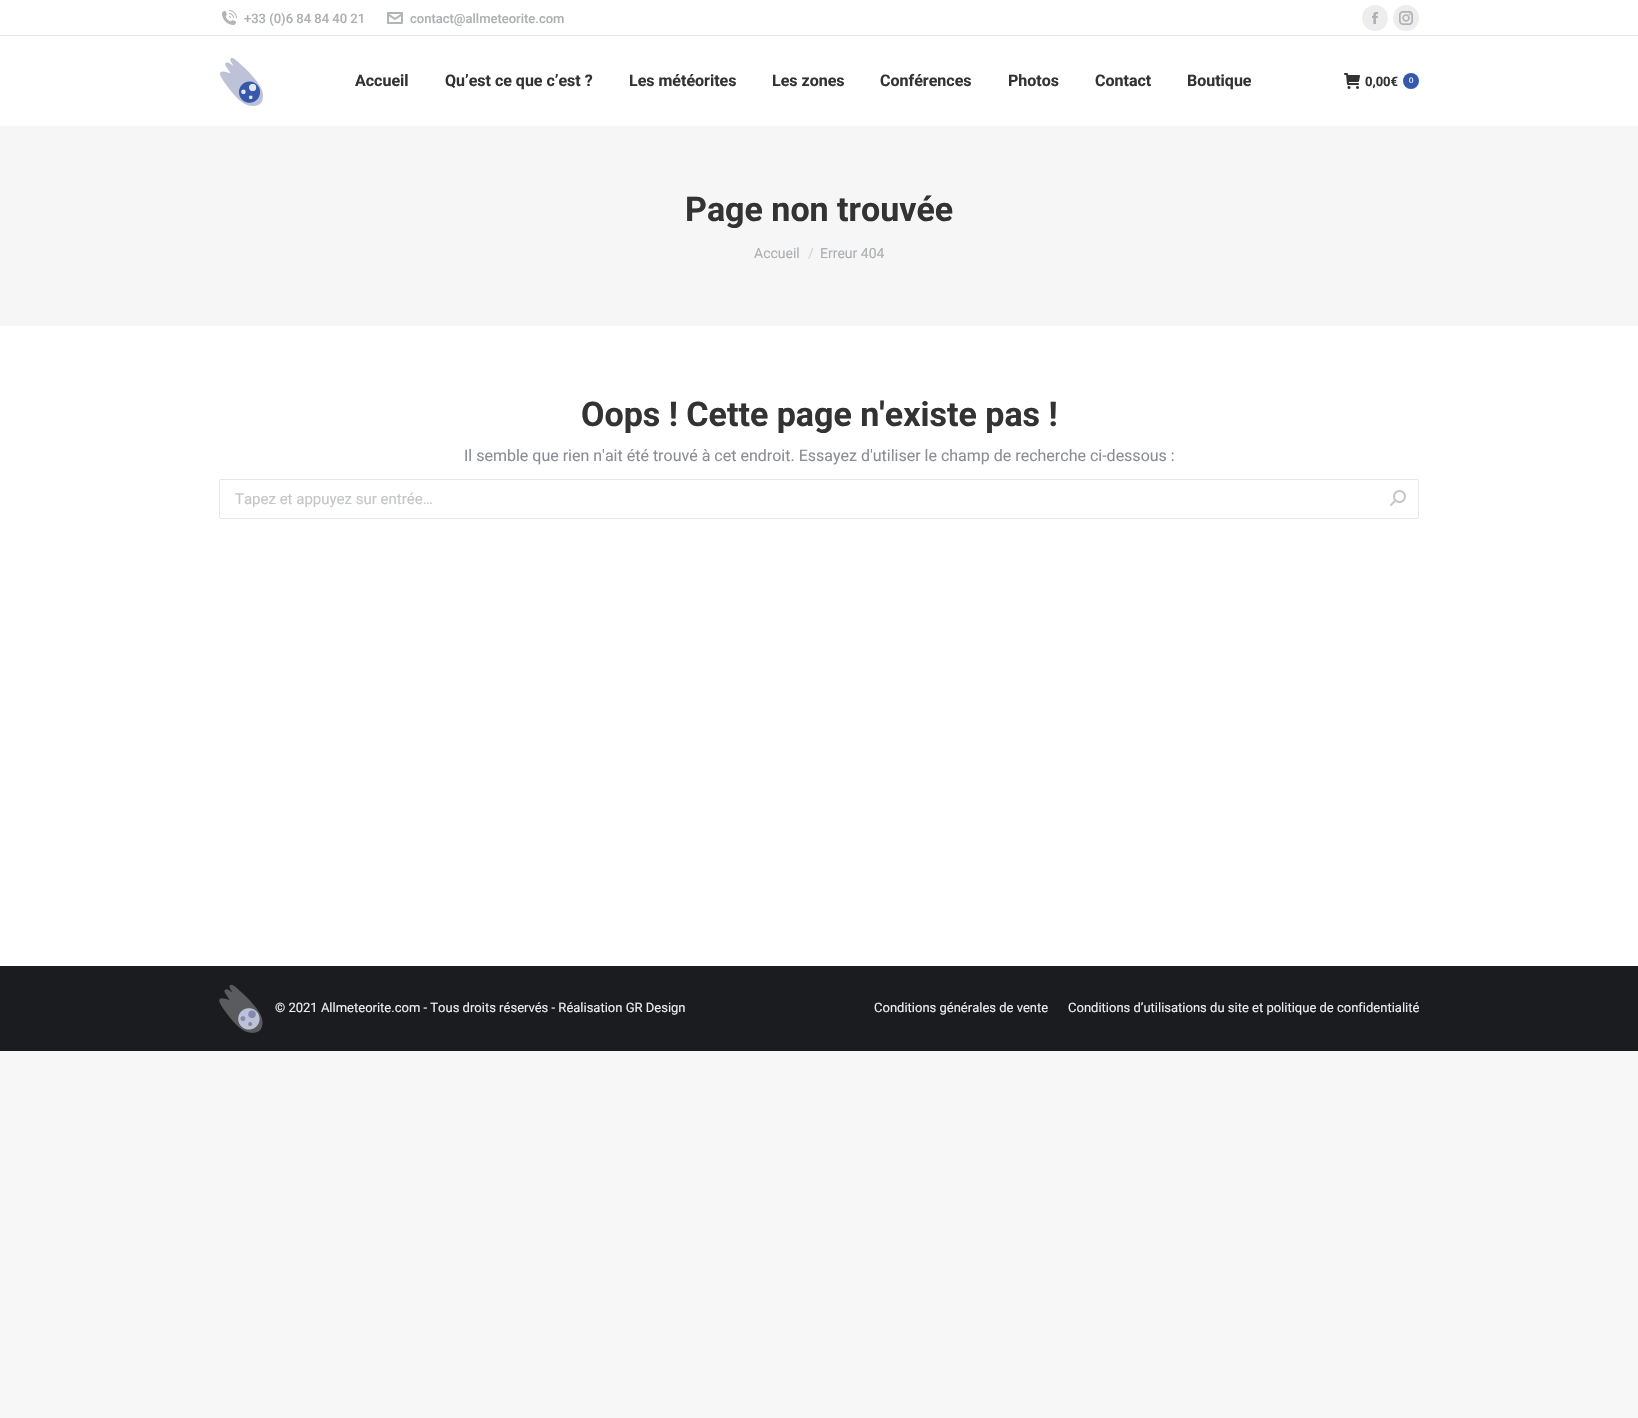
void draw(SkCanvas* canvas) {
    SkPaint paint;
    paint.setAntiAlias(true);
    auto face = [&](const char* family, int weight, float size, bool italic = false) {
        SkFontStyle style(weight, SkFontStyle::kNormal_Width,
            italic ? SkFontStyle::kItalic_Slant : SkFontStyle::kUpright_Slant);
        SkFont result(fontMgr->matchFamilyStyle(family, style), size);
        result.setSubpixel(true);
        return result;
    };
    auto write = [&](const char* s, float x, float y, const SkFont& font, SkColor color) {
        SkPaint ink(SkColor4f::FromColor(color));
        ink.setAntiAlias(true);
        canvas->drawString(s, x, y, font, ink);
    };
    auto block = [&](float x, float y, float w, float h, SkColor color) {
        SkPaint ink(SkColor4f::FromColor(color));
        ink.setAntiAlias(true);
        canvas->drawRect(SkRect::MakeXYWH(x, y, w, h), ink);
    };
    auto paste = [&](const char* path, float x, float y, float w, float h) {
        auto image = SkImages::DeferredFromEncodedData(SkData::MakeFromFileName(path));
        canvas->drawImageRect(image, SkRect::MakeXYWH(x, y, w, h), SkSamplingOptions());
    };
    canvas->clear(SkColorSetRGB(247, 247, 247));
    block(0, 0, 1638, 966, SK_ColorWHITE);
    paste("pic1.png", 222, 10, 15, 15);
    auto kFont1 = face("Roboto", 500, 13);
    write("+33 (0)6 84 84 40 21", 244, 23, kFont1, SkColorSetRGB(173, 175, 179));
    paste("pic2.png", 387, 12, 16, 12);
    write("contact@allmeteorite.com", 410, 23, kFont1, SkColorSetRGB(173, 175, 179));
    paint.setColor(SkColorSetRGB(237, 237, 237));
    canvas->drawCircle(1375, 18, 13, paint);
    paste("pic3.png", 1372, 12, 6, 12);
    canvas->drawCircle(1406, 18, 13, paint);
    paste("pic4.png", 1399, 11, 14, 14);
    block(0, 35, 1638, 1, SkColorSetRGB(233, 233, 233));
    paste("pic5.png", 220, 58, 43, 48);
    auto kFont2 = face("Roboto", 700, 16);
    write("Accueil", 355, 86, kFont2, SkColorSetRGB(51, 51, 51));
    write("Qu’est ce que c’est ?", 445, 86, kFont2, SkColorSetRGB(51, 51, 51));
    write("Les météorites", 629, 86, kFont2, SkColorSetRGB(51, 51, 51));
    write("Les zones", 772, 86, kFont2, SkColorSetRGB(51, 51, 51));
    write("Conférences", 880, 86, kFont2, SkColorSetRGB(51, 51, 51));
    write("Photos", 1008, 86, kFont2, SkColorSetRGB(51, 51, 51));
    write("Contact", 1095, 86, kFont2, SkColorSetRGB(51, 51, 51));
    write("Boutique", 1187, 86, kFont2, SkColorSetRGB(51, 51, 51));
    paste("pic6.png", 1344, 73, 16, 16);
    auto kFont3 = face("Roboto", 700, 13);
    write("0,00€", 1365, 86, kFont3, SkColorSetRGB(51, 51, 51));
    paint.setColor(SkColorSetRGB(54, 88, 170));
    canvas->drawCircle(1411, 81, 8, paint);
    auto kFont4 = face("Liberation Sans", 400, 8);
    write("0", 1409, 83, kFont4, SK_ColorWHITE);
    block(0, 126, 1638, 200, SkColorSetRGB(246, 246, 246));
    auto kFont5 = face("Roboto", 700, 34);
    write("Page non trouvée", 685, 221, kFont5, SkColorSetRGB(51, 51, 51));
    auto kFont6 = face("Roboto", 400, 14);
    write("Accueil", 754, 258, kFont6, SkColorSetRGB(173, 175, 179));
    write("/", 808, 258, kFont6, SkColorSetRGB(210, 211, 213));
    write("Erreur 404", 820, 258, kFont6, SkColorSetRGB(173, 175, 179));
    write("Oops ! Cette page n'existe pas !", 581, 426, kFont5, SkColorSetRGB(51, 51, 51));
    auto kFont7 = face("Roboto", 400, 16);
    write("Il semble que rien n'ait été trouvé à cet endroit. Essayez d'utiliser le champ de recherche ci-dessous :", 464, 461, kFont7, SkColorSetRGB(139, 141, 148));
    paint.setStyle(SkPaint::kStroke_Style);
    paint.setStrokeWidth(1);
    paint.setColor(SkColorSetRGB(231, 231, 231));
    canvas->drawRoundRect(SkRect::MakeXYWH(219.5f, 479.5f, 1199, 39), 1.5f, 1.5f, paint);
    auto kFont8 = face("Roboto", 400, 15);
    write("Tapez et appuyez sur entrée…", 235, 504, kFont8, SkColorSetRGB(196, 197, 201));
    paste("pic7.png", 1390, 490, 16, 16);
    block(0, 966, 1638, 85, SkColorSetRGB(26, 28, 32));
    paste("pic8.png", 219, 984, 44, 49);
    auto kFont9 = face("Roboto", 400, 13);
    write("© 2021 Allmeteorite.com - Tous droits réservés - Réalisation GR Design", 275, 1012, kFont9, SkColorSetRGB(238, 238, 238));
    write("Conditions générales de vente", 874, 1012, kFont9, SkColorSetRGB(238, 238, 238));
    write("Conditions d’utilisations du site et politique de confidentialité", 1068, 1012, kFont9, SkColorSetRGB(238, 238, 238));
}
